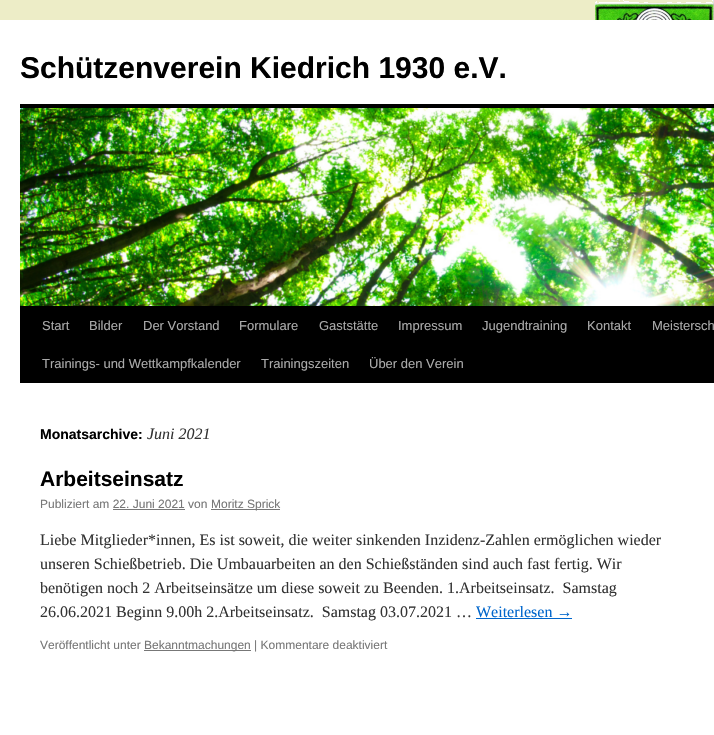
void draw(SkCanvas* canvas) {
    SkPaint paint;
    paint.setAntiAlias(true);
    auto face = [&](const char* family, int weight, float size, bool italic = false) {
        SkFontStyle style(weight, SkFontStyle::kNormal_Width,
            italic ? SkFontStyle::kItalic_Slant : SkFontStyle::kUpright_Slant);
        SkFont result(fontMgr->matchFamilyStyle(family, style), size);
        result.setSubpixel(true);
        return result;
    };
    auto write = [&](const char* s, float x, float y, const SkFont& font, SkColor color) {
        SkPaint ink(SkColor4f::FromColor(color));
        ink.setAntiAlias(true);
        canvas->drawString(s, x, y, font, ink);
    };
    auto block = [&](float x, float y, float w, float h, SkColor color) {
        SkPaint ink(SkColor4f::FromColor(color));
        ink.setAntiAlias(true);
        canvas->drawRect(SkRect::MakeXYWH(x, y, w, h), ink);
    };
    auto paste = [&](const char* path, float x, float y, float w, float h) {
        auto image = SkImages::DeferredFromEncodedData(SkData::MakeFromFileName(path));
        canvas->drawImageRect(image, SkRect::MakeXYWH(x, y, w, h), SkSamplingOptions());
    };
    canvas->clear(SkColorSetRGB(237, 237, 199));
    paste("pic1.png", 595, 0, 119, 20);
    block(0, 20, 714, 715, SK_ColorWHITE);
    auto kFont1 = face("Liberation Sans", 700, 30);
    write("Schützenverein Kiedrich 1930 e.V.", 20, 78, kFont1, SK_ColorBLACK);
    block(20, 104, 694, 4, SK_ColorBLACK);
    block(20, 306, 694, 77, SK_ColorBLACK);
    paste("pic2.png", 20, 108, 694, 198);
    auto kFont2 = face("Liberation Sans", 400, 13);
    write("Start", 42, 330, kFont2, SkColorSetRGB(170, 170, 170));
    write("Bilder", 89, 330, kFont2, SkColorSetRGB(170, 170, 170));
    write("Der Vorstand", 143, 330, kFont2, SkColorSetRGB(170, 170, 170));
    write("Formulare", 239, 330, kFont2, SkColorSetRGB(170, 170, 170));
    write("Gaststätte", 319, 330, kFont2, SkColorSetRGB(170, 170, 170));
    write("Impressum", 398, 330, kFont2, SkColorSetRGB(170, 170, 170));
    write("Jugendtraining", 482, 330, kFont2, SkColorSetRGB(170, 170, 170));
    write("Kontakt", 587, 330, kFont2, SkColorSetRGB(170, 170, 170));
    write("Meistersch", 652, 330, kFont2, SkColorSetRGB(170, 170, 170));
    write("Trainings- und Wettkampfkalender", 42, 368, kFont2, SkColorSetRGB(170, 170, 170));
    write("Trainingszeiten", 261, 368, kFont2, SkColorSetRGB(170, 170, 170));
    write("Über den Verein", 369, 368, kFont2, SkColorSetRGB(170, 170, 170));
    auto kFont3 = face("Liberation Sans", 700, 14);
    write("Monatsarchive:", 40, 439, kFont3, SK_ColorBLACK);
    auto kFont4 = face("Liberation Serif", 400, 16, true);
    write("Juni 2021", 147, 439, kFont4, SkColorSetRGB(51, 51, 51));
    auto kFont5 = face("Liberation Sans", 700, 21);
    write("Arbeitseinsatz", 40, 486, kFont5, SK_ColorBLACK);
    auto kFont6 = face("Liberation Sans", 400, 12);
    write("Publiziert am 22. Juni 2021 von", 40, 508, kFont6, SkColorSetRGB(119, 119, 119));
    block(211, 509, 69, 1, SkColorSetRGB(119, 119, 119));
    write("Moritz Sprick", 211, 508, kFont6, SkColorSetRGB(119, 119, 119));
    block(113, 509, 72, 1, SkColorSetRGB(119, 119, 119));
    auto kFont7 = face("Liberation Serif", 400, 16);
    write("Liebe Mitglieder*innen, Es ist soweit, die weiter sinkenden Inzidenz-Zahlen ermöglichen wieder", 40, 545, kFont7, SkColorSetRGB(51, 51, 51));
    write("unseren Schießbetrieb. Die Umbauarbeiten an den Schießständen sind auch fast fertig. Wir", 40, 569, kFont7, SkColorSetRGB(51, 51, 51));
    write("benötigen noch 2 Arbeitseinsätze um diese soweit zu Beenden. 1.Arbeitseinsatz.  Samstag", 40, 593, kFont7, SkColorSetRGB(51, 51, 51));
    write("26.06.2021 Beginn 9.00h 2.Arbeitseinsatz.  Samstag 03.07.2021 …", 40, 617, kFont7, SkColorSetRGB(51, 51, 51));
    write("Weiterlesen →", 476, 617, kFont7, SkColorSetRGB(0, 102, 204));
    block(476, 618, 96, 1, SkColorSetRGB(0, 102, 204));
    write("Veröffentlicht unter", 40, 649, kFont6, SkColorSetRGB(119, 119, 119));
    block(144, 650, 107, 1, SkColorSetRGB(119, 119, 119));
    write("Bekanntmachungen | Kommentare deaktiviert", 144, 649, kFont6, SkColorSetRGB(119, 119, 119));
}
